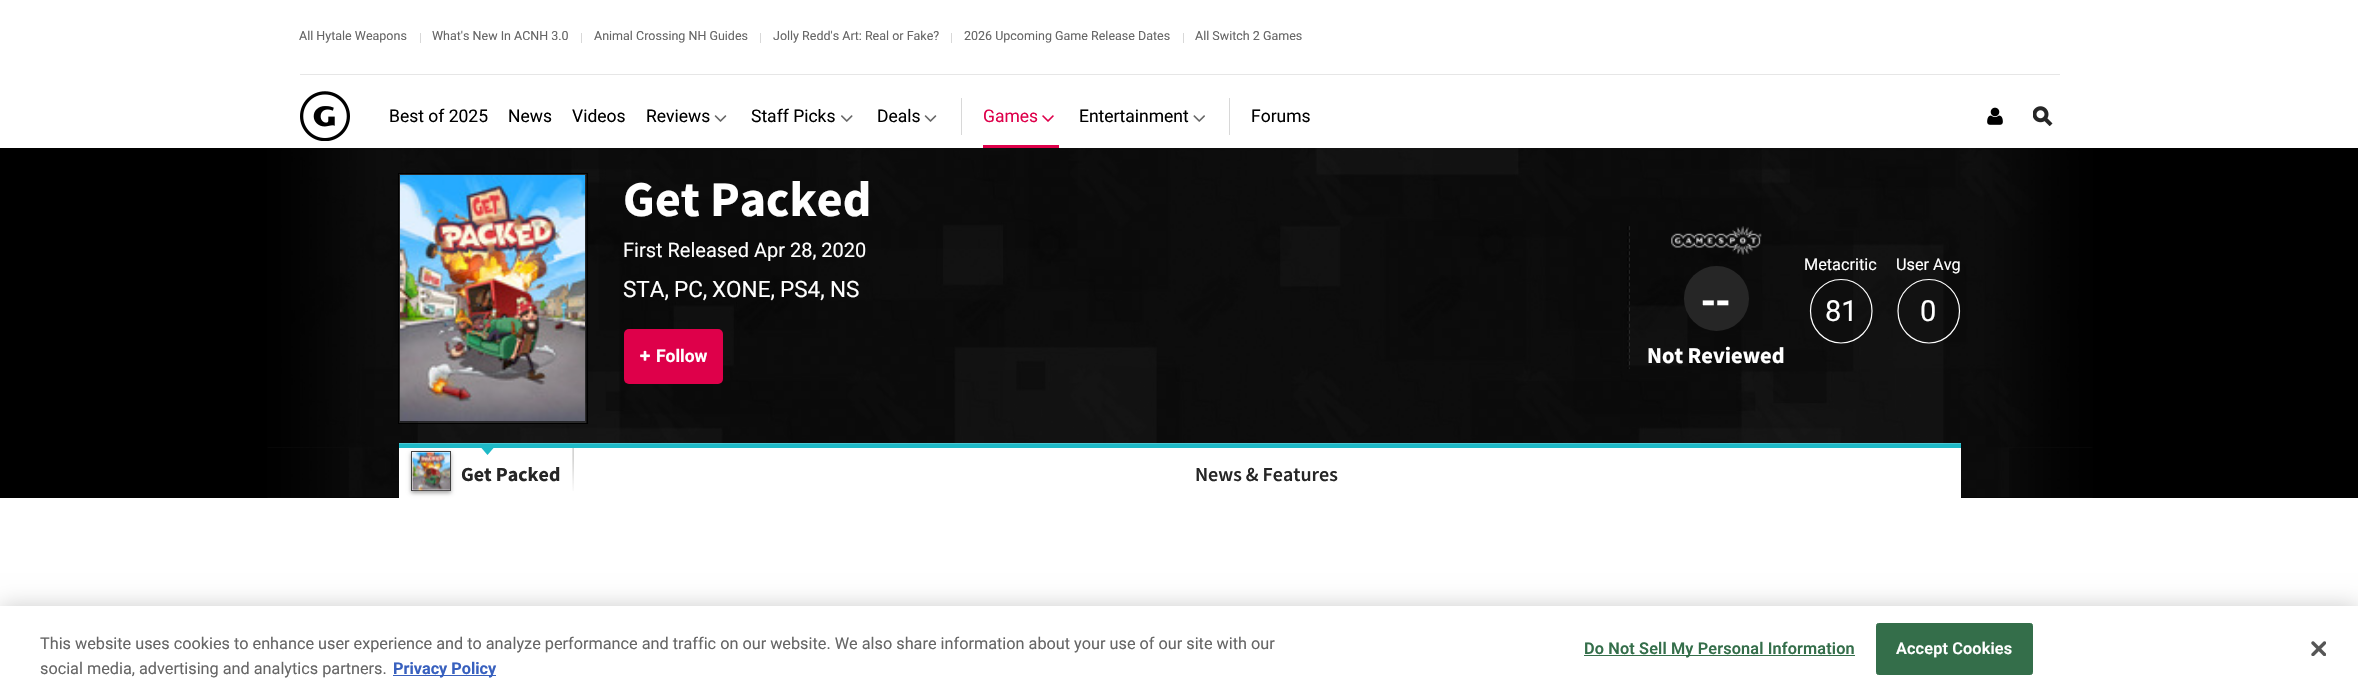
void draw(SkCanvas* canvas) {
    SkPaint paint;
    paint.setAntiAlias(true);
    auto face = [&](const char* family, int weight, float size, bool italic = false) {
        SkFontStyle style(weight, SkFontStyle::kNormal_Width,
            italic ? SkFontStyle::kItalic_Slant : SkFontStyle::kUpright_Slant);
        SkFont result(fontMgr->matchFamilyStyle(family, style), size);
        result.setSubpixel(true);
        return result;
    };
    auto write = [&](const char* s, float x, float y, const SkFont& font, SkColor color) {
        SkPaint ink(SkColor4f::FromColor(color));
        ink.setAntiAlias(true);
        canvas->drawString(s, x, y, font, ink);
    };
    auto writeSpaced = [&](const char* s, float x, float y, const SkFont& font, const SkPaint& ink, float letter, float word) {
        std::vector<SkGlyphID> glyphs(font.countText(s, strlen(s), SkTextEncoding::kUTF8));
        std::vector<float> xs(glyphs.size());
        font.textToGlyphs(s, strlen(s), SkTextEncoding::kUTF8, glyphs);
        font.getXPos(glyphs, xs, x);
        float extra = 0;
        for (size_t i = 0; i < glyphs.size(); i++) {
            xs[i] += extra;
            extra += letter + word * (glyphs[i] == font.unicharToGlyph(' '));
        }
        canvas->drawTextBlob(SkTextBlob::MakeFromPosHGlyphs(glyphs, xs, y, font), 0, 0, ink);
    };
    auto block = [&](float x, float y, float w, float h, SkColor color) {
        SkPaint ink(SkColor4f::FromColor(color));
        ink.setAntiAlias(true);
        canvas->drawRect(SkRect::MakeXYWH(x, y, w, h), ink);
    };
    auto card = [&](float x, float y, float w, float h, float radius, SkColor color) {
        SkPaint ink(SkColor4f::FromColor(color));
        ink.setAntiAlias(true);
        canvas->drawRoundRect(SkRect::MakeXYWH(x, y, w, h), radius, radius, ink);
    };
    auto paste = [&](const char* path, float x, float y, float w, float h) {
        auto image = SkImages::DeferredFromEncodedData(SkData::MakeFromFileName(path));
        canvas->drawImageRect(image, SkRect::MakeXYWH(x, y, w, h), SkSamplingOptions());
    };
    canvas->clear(SK_ColorWHITE);
    block(300, 74, 1760, 1, SkColorSetRGB(230, 230, 230));
    auto kFont1 = face("Roboto", 400, 12.5f);
    write("All Hytale Weapons", 299, 40, kFont1, SkColorSetRGB(102, 102, 102));
    block(420, 33, 1, 10, SkColorSetRGB(216, 216, 216));
    write("What's New In ACNH 3.0", 432, 40, kFont1, SkColorSetRGB(102, 102, 102));
    block(581, 33, 1, 10, SkColorSetRGB(216, 216, 216));
    write("Animal Crossing NH Guides", 594, 40, kFont1, SkColorSetRGB(102, 102, 102));
    block(760, 33, 1, 10, SkColorSetRGB(216, 216, 216));
    write("Jolly Redd's Art: Real or Fake?", 773, 40, kFont1, SkColorSetRGB(102, 102, 102));
    block(951, 33, 1, 10, SkColorSetRGB(216, 216, 216));
    write("2026 Upcoming Game Release Dates", 964, 40, kFont1, SkColorSetRGB(102, 102, 102));
    block(1183, 33, 1, 10, SkColorSetRGB(216, 216, 216));
    write("All Switch 2 Games", 1195, 40, kFont1, SkColorSetRGB(102, 102, 102));
    paste("pic1.png", 300, 91, 50, 50);
    auto kFont2 = face("Roboto", 400, 17.5f);
    write("Best of 2025", 389, 122, kFont2, SK_ColorBLACK);
    write("News", 508, 122, kFont2, SK_ColorBLACK);
    write("Videos", 572, 122, kFont2, SK_ColorBLACK);
    write("Reviews", 646, 122, kFont2, SK_ColorBLACK);
    paste("pic2.png", 714, 115, 13, 7);
    write("Staff Picks", 751, 122, kFont2, SK_ColorBLACK);
    paste("pic3.png", 841, 115, 12, 7);
    write("Deals", 877, 122, kFont2, SK_ColorBLACK);
    paste("pic2.png", 924, 115, 13, 7);
    block(961, 98, 1, 37, SkColorSetRGB(216, 216, 216));
    write("Games", 983, 122, kFont2, SkColorSetRGB(222, 0, 74));
    paste("pic4.png", 1042, 115, 12, 7);
    block(983, 145, 76, 3, SkColorSetRGB(222, 0, 74));
    write("Entertainment", 1079, 122, kFont2, SK_ColorBLACK);
    paste("pic5.png", 1193, 115, 12, 7);
    block(1229, 98, 1, 37, SkColorSetRGB(216, 216, 216));
    write("Forums", 1251, 122, kFont2, SK_ColorBLACK);
    paste("pic6.png", 1987, 107, 16, 18);
    paste("pic7.png", 2033, 106, 20, 20);
    block(0, 148, 2358, 350, SK_ColorBLACK);
    paste("pic8.png", 267, 148, 1826, 350);
    paste("pic9.png", 266, 148, 112, 300);
    paint.setStyle(SkPaint::kStroke_Style);
    paint.setStrokeWidth(1);
    paint.setColor(SK_ColorBLACK);
    canvas->drawRect(SkRect::MakeXYWH(398.5f, 173.5f, 189, 250), paint);
    paint.setColor(SkColorSetARGB(26, 255, 255, 255));
    canvas->drawRect(SkRect::MakeXYWH(399.5f, 174.5f, 186, 248), paint);
    paste("pic10.png", 400, 175, 185, 247);
    paste("pic11.png", 400, 175, 185, 118);
    auto kFont3 = face("Source Sans Pro", 700, 50);
    write("Get Packed", 623, 216, kFont3, SK_ColorWHITE);
    auto kFont4 = face("Roboto", 400, 20);
    write("First Released Apr 28, 2020", 623, 257, kFont4, SK_ColorWHITE);
    auto kFont5 = face("Roboto", 400, 22.5f);
    write("STA,", 623, 297, kFont5, SK_ColorWHITE);
    write("PC,", 674, 297, kFont5, SK_ColorWHITE);
    write("XONE,", 712, 297, kFont5, SK_ColorWHITE);
    write("PS4,", 780, 297, kFont5, SK_ColorWHITE);
    write("NS", 830, 297, kFont5, SK_ColorWHITE);
    card(624, 329, 99, 55, 5, SkColorSetRGB(222, 0, 74));
    paste("pic12.png", 640, 350, 10, 11);
    auto kFont6 = face("Roboto", 700, 17.5f);
    write("Follow", 656, 362, kFont6, SK_ColorWHITE);
    paste("pic13.png", 1627, 226, 3, 143);
    auto kFont7 = face("Roboto", 400, 16.25f);
    write("Metacritic", 1804, 270, kFont7, SK_ColorWHITE);
    paint.setStrokeWidth(1.2f);
    paint.setColor(SK_ColorWHITE);
    canvas->drawPath(SkPathBuilder().moveTo(1841, 279.5f).cubicTo(1858, 279.5f, 1872, 293.5f, 1872, 311).cubicTo(1872, 329, 1858, 343, 1841, 343).cubicTo(1824.5f, 343, 1810.5f, 329, 1810.5f, 311).cubicTo(1810.5f, 293.5f, 1824.5f, 279.5f, 1841, 279.5f).close().detach(), paint);
    auto kFont8 = face("Roboto", 400, 29);
    write("81", 1825, 321, kFont8, SK_ColorWHITE);
    write("User Avg", 1896, 270, kFont7, SK_ColorWHITE);
    canvas->drawPath(SkPathBuilder().moveTo(1929, 279.5f).cubicTo(1945.5f, 279.5f, 1959.5f, 293.5f, 1959.5f, 311).cubicTo(1959.5f, 329, 1945.5f, 343, 1929, 343).cubicTo(1912, 343, 1898, 329, 1898, 311).cubicTo(1898, 293.5f, 1912, 279.5f, 1929, 279.5f).close().detach(), paint);
    write("0", 1920, 321, kFont8, SK_ColorWHITE);
    paste("pic14.png", 1671, 226, 91, 29);
    paint.setStyle(SkPaint::kFill_Style);
    paint.setColor(SkColorSetRGB(38, 38, 38));
    canvas->drawCircle(1716.5f, 298.5f, 32.5f, paint);
    auto kFont9 = face("Source Sans Pro", 700, 44);
    write("--", 1701, 314, kFont9, SK_ColorWHITE);
    auto kFont10 = face("Source Sans Pro", 700, 22.5f);
    write("Not Reviewed", 1647, 363, kFont10, SK_ColorWHITE);
    paste("pic15.png", 1982, 148, 112, 300);
    paste("pic16.png", 267, 448, 82, 49);
    paste("pic17.png", 2009, 448, 84, 49);
    block(399, 448, 1562, 50, SK_ColorWHITE);
    block(399, 444, 1562, 4, SkColorSetRGB(30, 185, 199));
    block(399, 443, 1562, 1, SkColorSetRGB(75, 199, 210));
    canvas->save();
    canvas->clipPath(SkPathBuilder(SkPathFillType::kEvenOdd).moveTo(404, 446).lineTo(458, 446).lineTo(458, 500).lineTo(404, 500).close().moveTo(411, 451).lineTo(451, 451).lineTo(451, 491).lineTo(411, 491).close().detach(), true);
    paint.setColor(SkColorSetARGB(89, 0, 0, 0));
    paint.setMaskFilter(SkMaskFilter::MakeBlur(kNormal_SkBlurStyle, 2));
    canvas->drawRect(SkRect::MakeXYWH(411, 453, 40, 40), paint);
    paint.setMaskFilter(nullptr);
    canvas->restore();
    paint.setStyle(SkPaint::kStroke_Style);
    paint.setStrokeWidth(1);
    paint.setColor(SkColorSetARGB(191, 0, 0, 0));
    canvas->drawRect(SkRect::MakeXYWH(411.5f, 451.5f, 39, 39), paint);
    paste("pic18.png", 412, 452, 38, 39);
    paint.setStyle(SkPaint::kFill_Style);
    paint.setColor(SkColorSetRGB(30, 185, 199));
    canvas->drawPath(SkPathBuilder().moveTo(481, 447.5f).lineTo(494, 447.5f).lineTo(487.5f, 455).close().detach(), paint);
    auto kFont11 = face("Source Sans Pro", 700, 20);
    write("Get Packed", 461, 481, kFont11, SkColorSetRGB(38, 38, 38));
    paste("pic19.png", 572, 448, 2, 43);
    auto kFont12 = face("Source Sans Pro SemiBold", 600, 20);
    write("News & Features", 1195, 481, kFont12, SkColorSetRGB(38, 38, 38));
    paint.setColor(SkColorSetARGB(51, 0, 0, 0));
    paint.setMaskFilter(SkMaskFilter::MakeBlur(kNormal_SkBlurStyle, 11));
    canvas->drawRect(SkRect::MakeXYWH(0, 606, 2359, 89), paint);
    paint.setMaskFilter(nullptr);
    block(0, 606, 2358, 89, SK_ColorWHITE);
    write("This website uses cookies to enhance user experience and to analyze performance and traffic on our website. We also share information about your use of our site with our", 40, 649, kFont7, SkColorSetRGB(102, 102, 102));
    write("social media, advertising and analytics partners.", 40, 674, kFont7, SkColorSetRGB(102, 102, 102));
    block(393, 675, 103, 1, SkColorSetRGB(56, 96, 190));
    auto kFont13 = face("Roboto", 700, 16.25f);
    write("Privacy Policy", 393, 674, kFont13, SkColorSetRGB(56, 96, 190));
    block(1584, 655, 271, 1, SkColorSetRGB(52, 110, 74));
    auto kFont14 = face("Roboto", 600, 16.25f);
    paint.setColor(SkColorSetRGB(52, 110, 74));
    writeSpaced("Do Not Sell My Personal Information", 1584, 654, kFont14, paint, 0.15f, 0);
    canvas->drawRoundRect(SkRect::MakeXYWH(1876.5f, 623.5f, 156, 51), 2, 2, paint);
    paint.setStyle(SkPaint::kStroke_Style);
    canvas->drawRoundRect(SkRect::MakeXYWH(1876.5f, 623.5f, 156, 51), 2, 2, paint);
    paint.setStyle(SkPaint::kFill_Style);
    paint.setColor(SK_ColorWHITE);
    writeSpaced("Accept Cookies", 1896, 654, kFont14, paint, 0.15f, 0);
    paste("pic20.png", 2311, 641, 15, 15);
}
